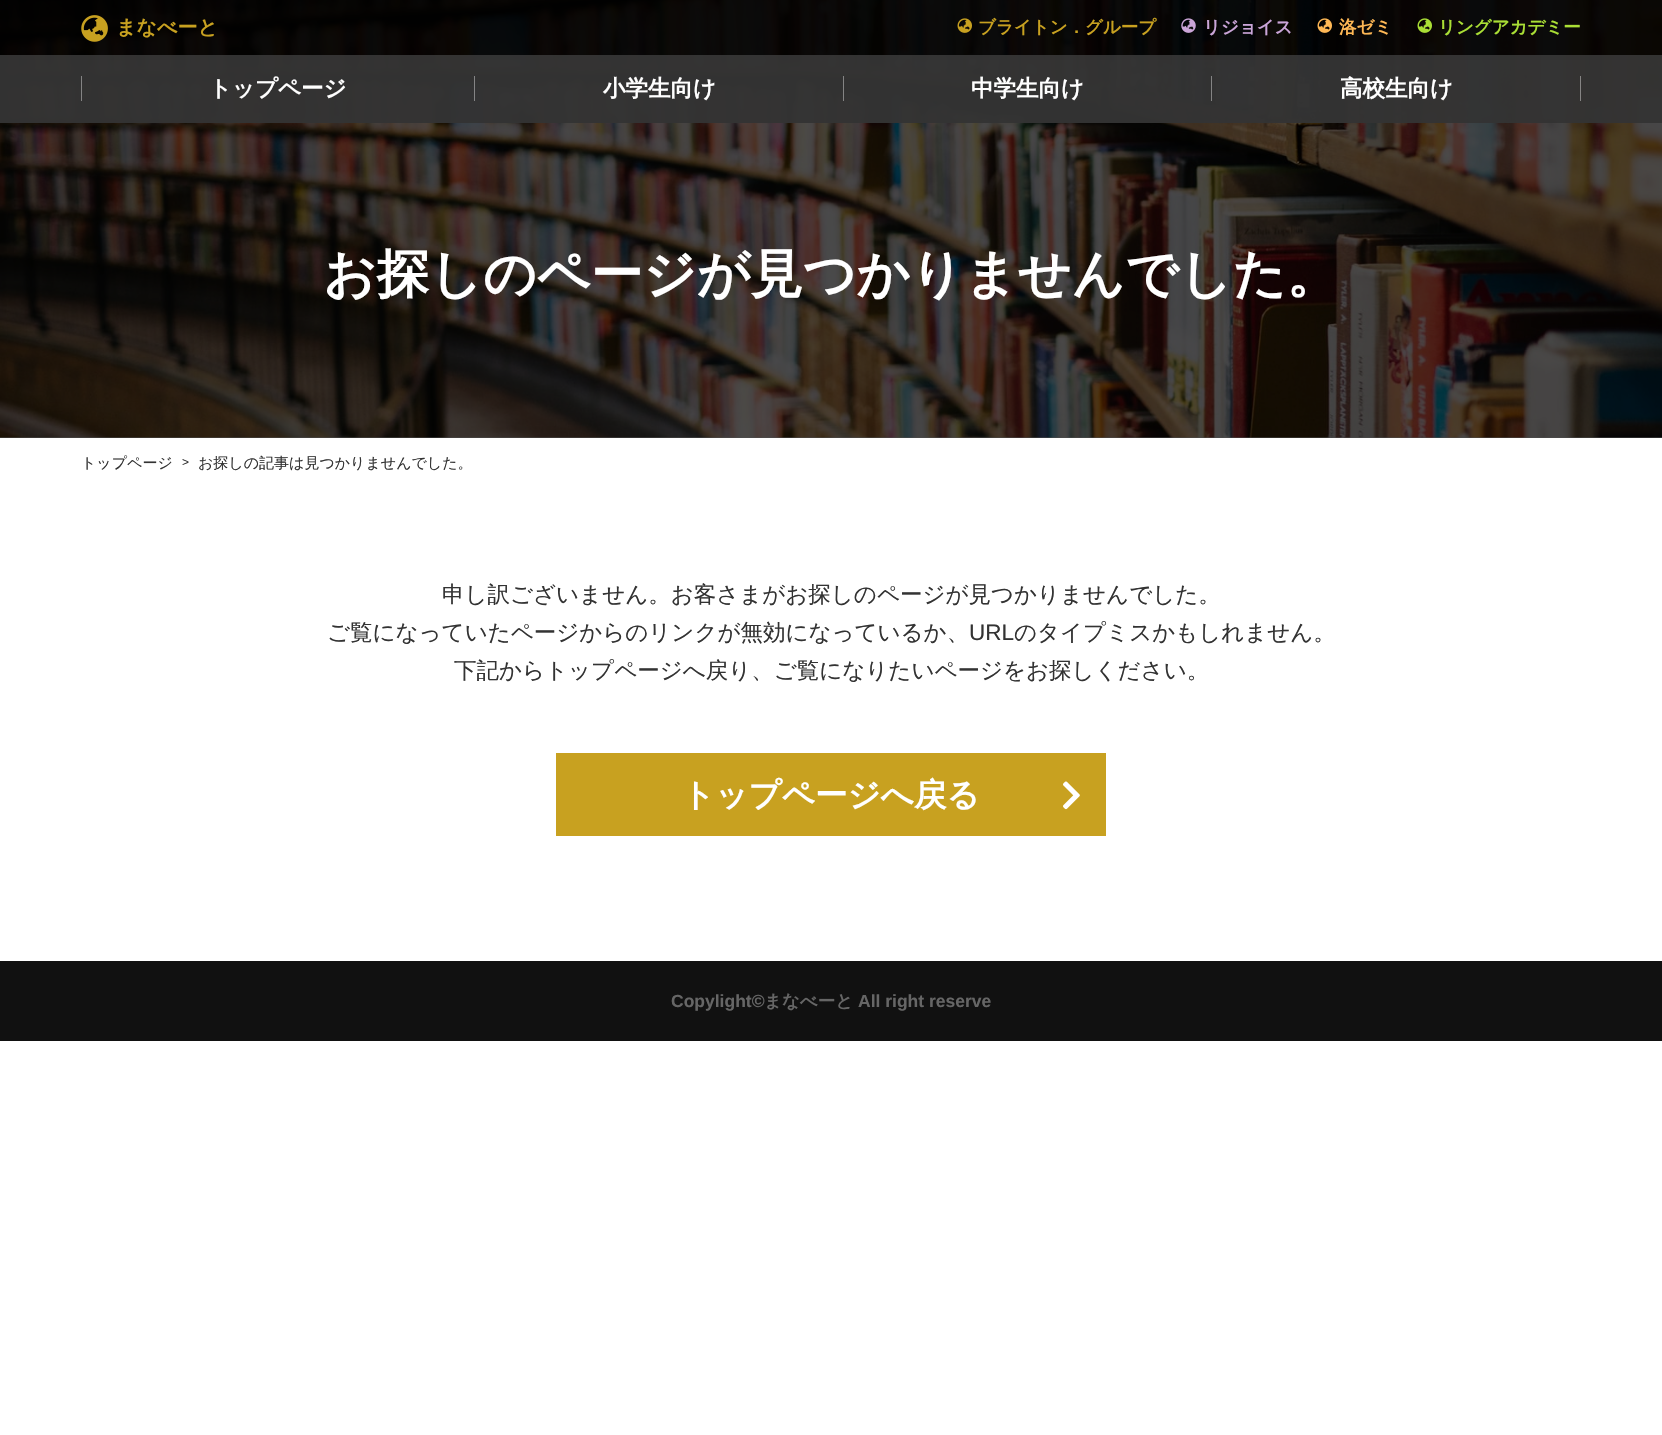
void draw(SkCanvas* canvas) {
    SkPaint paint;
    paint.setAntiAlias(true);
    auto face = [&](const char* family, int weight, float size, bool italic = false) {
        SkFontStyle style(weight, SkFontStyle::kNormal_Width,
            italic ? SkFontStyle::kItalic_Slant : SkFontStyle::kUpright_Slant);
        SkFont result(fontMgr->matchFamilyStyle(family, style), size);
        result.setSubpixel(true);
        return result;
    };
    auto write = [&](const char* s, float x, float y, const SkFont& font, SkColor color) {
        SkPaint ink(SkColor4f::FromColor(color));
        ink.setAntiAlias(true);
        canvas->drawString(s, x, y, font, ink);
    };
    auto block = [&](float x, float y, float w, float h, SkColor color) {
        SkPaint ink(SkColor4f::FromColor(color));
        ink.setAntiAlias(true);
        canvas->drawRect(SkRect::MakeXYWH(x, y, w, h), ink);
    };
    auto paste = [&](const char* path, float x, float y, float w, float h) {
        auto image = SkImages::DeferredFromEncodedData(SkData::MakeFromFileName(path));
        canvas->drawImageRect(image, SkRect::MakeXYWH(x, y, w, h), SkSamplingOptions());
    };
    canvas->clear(SK_ColorWHITE);
    block(0, 437, 1662, 1, SkColorSetRGB(77, 77, 77));
    paste("pic6.png", 0, 0, 1662, 438);
    block(0, 0, 1662, 55, SkColorSetARGB(217, 0, 0, 0));
    paste("pic1.png", 81, 15, 27, 27);
    auto kFont1 = face("WenQuanYi Zen Hei", 700, 20);
    write("まなべーと", 116, 34, kFont1, SkColorSetRGB(200, 161, 32));
    paste("pic2.png", 957, 18, 15, 15);
    auto kFont2 = face("WenQuanYi Zen Hei", 700, 17.5f);
    write("ブライトン．グループ", 978, 33, kFont2, SkColorSetRGB(200, 161, 32));
    paste("pic3.png", 1181, 18, 15, 15);
    write("リジョイス", 1203, 33, kFont2, SkColorSetRGB(202, 165, 216));
    paste("pic4.png", 1317, 18, 15, 15);
    write("洛ゼミ", 1339, 33, kFont2, SkColorSetRGB(255, 184, 85));
    paste("pic5.png", 1417, 18, 15, 15);
    write("リングアカデミー", 1438, 33, kFont2, SkColorSetRGB(170, 223, 53));
    block(0, 55, 1662, 68, SkColorSetARGB(247, 51, 51, 51));
    block(81, 76, 1, 25, SkColorSetRGB(132, 132, 132));
    auto kFont3 = face("WenQuanYi Zen Hei", 700, 22.5f);
    write("トップページ", 209, 96, kFont3, SK_ColorWHITE);
    block(474, 76, 1, 25, SkColorSetRGB(132, 132, 133));
    write("小学生向け", 603, 96, kFont3, SK_ColorWHITE);
    block(843, 76, 1, 25, SkColorSetRGB(132, 132, 132));
    write("中学生向け", 971, 96, kFont3, SK_ColorWHITE);
    block(1211, 76, 1, 25, SkColorSetRGB(132, 132, 132));
    write("高校生向け", 1340, 96, kFont3, SK_ColorWHITE);
    block(1580, 76, 1, 25, SkColorSetRGB(133, 133, 132));
    auto kFont4 = face("WenQuanYi Zen Hei", 700, 52.5f);
    write("お探しのページが見つかりませんでした。", 323, 292, kFont4, SK_ColorWHITE);
    auto kFont5 = face("WenQuanYi Zen Hei", 500, 15);
    write("トップページ", 81, 468, kFont5, SkColorSetRGB(51, 51, 51));
    auto kFont6 = face("Liberation Sans", 400, 12);
    write(">", 182, 466, kFont6, SkColorSetRGB(51, 51, 51));
    write("お探しの記事は見つかりませんでした。", 198, 468, kFont5, SkColorSetRGB(51, 51, 51));
    auto kFont7 = face("WenQuanYi Zen Hei", 500, 22.5f);
    write("申し訳ございません。お客さまがお探しのページが見つかりませんでした。", 442, 602, kFont7, SkColorSetRGB(51, 51, 51));
    write("ご覧になっていたページからのリンクが無効になっているか、", 327, 640, kFont7, SkColorSetRGB(51, 51, 51));
    auto kFont8 = face("Liberation Sans", 400, 22.5f);
    write("URL", 969, 640, kFont8, SkColorSetRGB(51, 51, 51));
    write("のタイプミスかもしれません。", 1014, 640, kFont7, SkColorSetRGB(51, 51, 51));
    write("下記からトップページへ戻り、ご覧になりたいページをお探しください。", 454, 678, kFont7, SkColorSetRGB(51, 51, 51));
    block(556, 753, 550, 83, SkColorSetRGB(200, 161, 32));
    auto kFont9 = face("WenQuanYi Zen Hei", 700, 32.5f);
    write("トップページへ戻る", 682, 806, kFont9, SK_ColorWHITE);
    paste("pic7.png", 1063, 781, 17, 29);
    block(0, 961, 1662, 80, SkColorSetRGB(17, 17, 17));
    auto kFont10 = face("Liberation Sans", 700, 17.5f);
    write("Copylight©", 671, 1007, kFont10, SkColorSetRGB(102, 102, 102));
    write("まなべーと", 764, 1007, kFont2, SkColorSetRGB(102, 102, 102));
    write("All right reserve", 858, 1007, kFont10, SkColorSetRGB(102, 102, 102));
}
